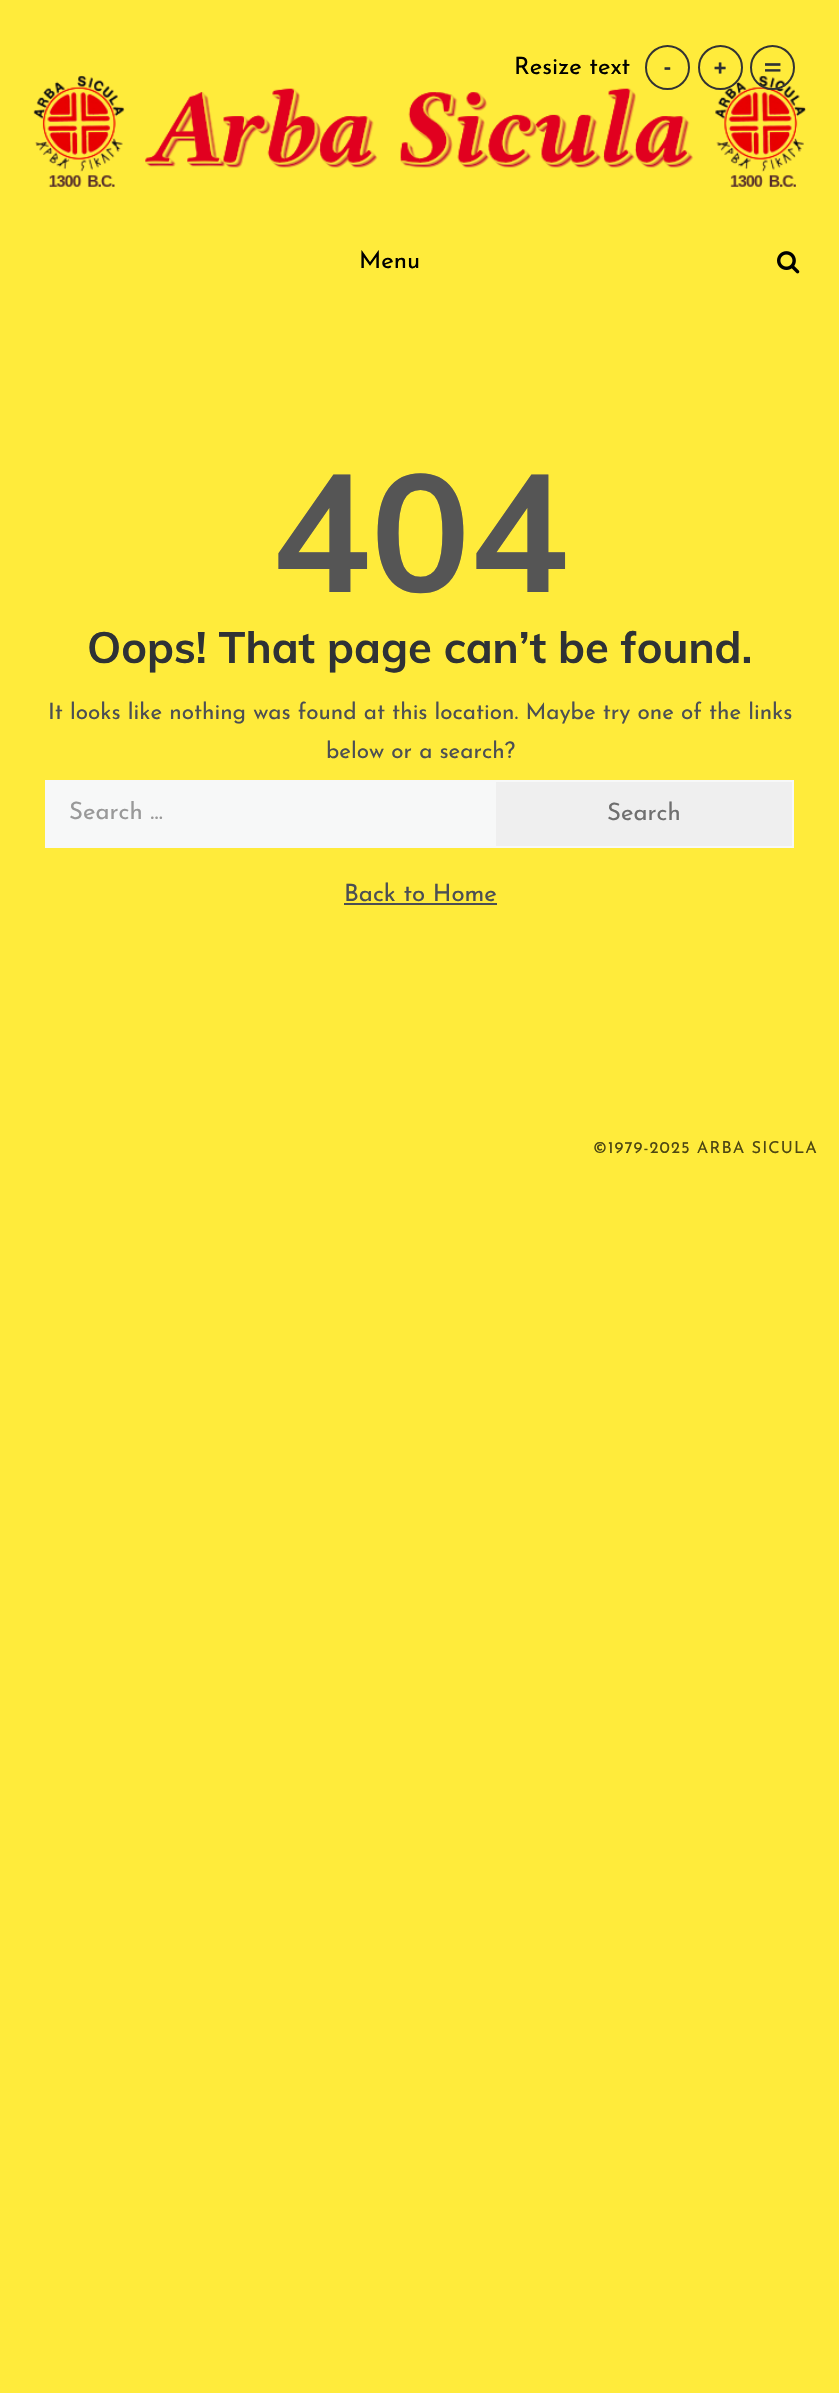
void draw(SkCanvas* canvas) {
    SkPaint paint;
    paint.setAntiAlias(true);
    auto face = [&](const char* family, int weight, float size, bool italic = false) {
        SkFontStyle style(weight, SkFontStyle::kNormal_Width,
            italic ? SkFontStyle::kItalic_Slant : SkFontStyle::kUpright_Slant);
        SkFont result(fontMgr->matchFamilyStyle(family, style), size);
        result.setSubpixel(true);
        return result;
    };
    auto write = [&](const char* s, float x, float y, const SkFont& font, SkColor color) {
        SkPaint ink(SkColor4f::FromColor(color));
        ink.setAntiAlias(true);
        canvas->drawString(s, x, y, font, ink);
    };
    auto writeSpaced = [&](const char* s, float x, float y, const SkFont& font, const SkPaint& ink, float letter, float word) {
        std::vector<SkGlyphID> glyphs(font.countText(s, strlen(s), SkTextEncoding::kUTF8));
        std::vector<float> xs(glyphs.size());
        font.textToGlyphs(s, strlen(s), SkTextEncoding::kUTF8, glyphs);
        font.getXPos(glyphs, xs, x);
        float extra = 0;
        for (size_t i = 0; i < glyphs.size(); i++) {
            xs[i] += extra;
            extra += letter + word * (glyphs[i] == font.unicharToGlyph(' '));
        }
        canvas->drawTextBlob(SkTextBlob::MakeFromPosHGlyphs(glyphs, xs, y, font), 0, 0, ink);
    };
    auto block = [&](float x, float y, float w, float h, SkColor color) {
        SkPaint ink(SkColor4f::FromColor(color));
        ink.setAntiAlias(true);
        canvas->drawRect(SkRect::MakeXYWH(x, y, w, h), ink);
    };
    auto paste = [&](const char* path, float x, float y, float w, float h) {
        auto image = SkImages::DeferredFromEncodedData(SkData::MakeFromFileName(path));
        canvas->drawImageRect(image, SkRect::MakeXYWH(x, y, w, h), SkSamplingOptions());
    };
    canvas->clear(SkColorSetRGB(255, 235, 59));
    auto kFont1 = face("Josefin Sans", 400, 24);
    write("Resize text", 514, 74, kFont1, SK_ColorBLACK);
    paste("pic1.png", 33, 75, 773, 112);
    paint.setStyle(SkPaint::kStroke_Style);
    paint.setStrokeWidth(2);
    paint.setColor(SkColorSetRGB(51, 51, 51));
    canvas->drawCircle(667.5f, 67.5f, 21.5f, paint);
    auto kFont2 = face("Josefin Sans", 400, 30);
    write("-", 663, 75, kFont2, SkColorSetRGB(47, 50, 53));
    canvas->drawCircle(720.5f, 67.5f, 21.5f, paint);
    write("+", 712, 75, kFont2, SkColorSetRGB(47, 50, 53));
    canvas->drawCircle(772.5f, 67.5f, 21.5f, paint);
    write("=", 762, 75, kFont2, SkColorSetRGB(47, 50, 53));
    write("Menu", 359, 268, kFont1, SK_ColorBLACK);
    paste("pic2.png", 777, 251, 23, 23);
    auto kFont3 = face("Muli", 700, 165);
    write("404", 272, 592, kFont3, SkColorSetRGB(85, 85, 85));
    auto kFont4 = face("Muli", 700, 43.5f);
    write("Oops! That page can’t be found.", 87, 663, kFont4, SkColorSetRGB(47, 50, 53));
    auto kFont5 = face("Josefin Sans", 400, 22.5f);
    write("It looks like nothing was found at this location. Maybe try one of the links", 48, 719, kFont5, SkColorSetRGB(76, 79, 83));
    write("below or a search?", 326, 758, kFont5, SkColorSetRGB(76, 79, 83));
    block(45, 780, 449, 68, SkColorSetRGB(247, 248, 248));
    canvas->save();
    canvas->clipRect(SkRect::MakeXYWH(69, 801, 396, 24));
    write("Search …", 69, 819, kFont1, SkColorSetRGB(153, 153, 153));
    canvas->restore();
    paint.setStyle(SkPaint::kFill_Style);
    paint.setColor(SkColorSetRGB(239, 239, 239));
    canvas->drawRect(SkRect::MakeXYWH(495, 781, 298, 66), paint);
    paint.setStyle(SkPaint::kStroke_Style);
    paint.setColor(SkColorSetRGB(247, 248, 248));
    canvas->drawRect(SkRect::MakeXYWH(495, 781, 298, 66), paint);
    write("Search", 607, 820, kFont1, SkColorSetRGB(111, 111, 111));
    write("Back to Home", 344, 901, kFont1, SkColorSetRGB(76, 79, 83));
    block(344, 903, 153, 2, SkColorSetRGB(76, 79, 83));
    auto kFont6 = face("Josefin Sans", 400, 16.5f);
    paint.setStyle(SkPaint::kFill_Style);
    paint.setColor(SkColorSetRGB(77, 71, 18));
    writeSpaced("©1979-2025 ARBA SICULA", 593, 1153, kFont6, paint, 1.05f, 0);
}
